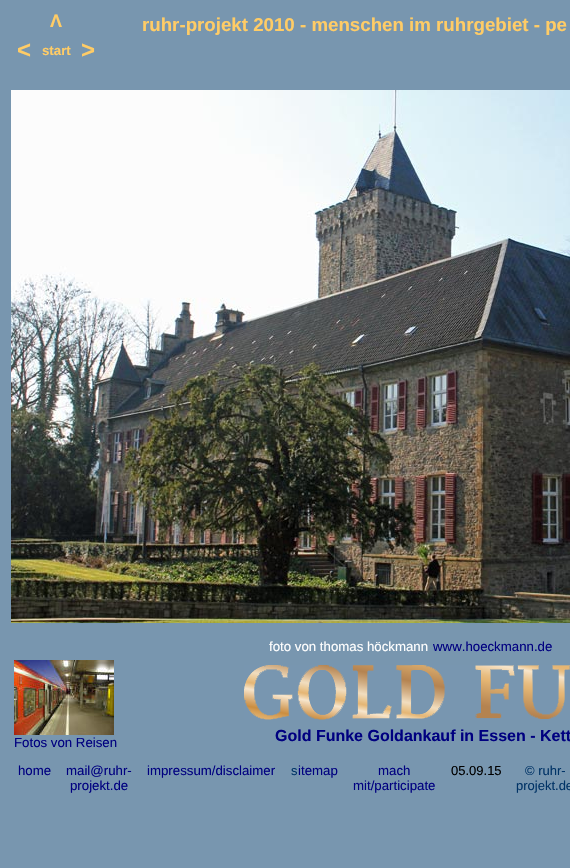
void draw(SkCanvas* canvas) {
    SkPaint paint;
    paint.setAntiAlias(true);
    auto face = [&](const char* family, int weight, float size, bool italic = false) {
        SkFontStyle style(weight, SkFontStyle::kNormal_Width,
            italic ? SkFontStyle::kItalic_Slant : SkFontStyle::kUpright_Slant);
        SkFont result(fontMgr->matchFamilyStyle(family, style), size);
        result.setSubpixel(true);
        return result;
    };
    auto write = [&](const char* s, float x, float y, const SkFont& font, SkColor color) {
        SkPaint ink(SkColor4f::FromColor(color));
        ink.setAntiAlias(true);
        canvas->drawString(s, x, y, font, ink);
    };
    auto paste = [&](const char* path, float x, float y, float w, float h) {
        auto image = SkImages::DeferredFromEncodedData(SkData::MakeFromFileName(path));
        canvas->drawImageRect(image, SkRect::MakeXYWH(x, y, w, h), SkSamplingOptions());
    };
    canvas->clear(SkColorSetRGB(120, 150, 175));
    auto kFont1 = face("Liberation Sans", 700, 18);
    write("Λ", 50, 27, kFont1, SkColorSetRGB(255, 204, 102));
    auto kFont2 = face("Liberation Sans", 700, 18.7f);
    write("ruhr-projekt 2010 - menschen im ruhrgebiet - pe", 142, 31, kFont2, SkColorSetRGB(255, 204, 102));
    auto kFont3 = face("Liberation Sans", 700, 24);
    write("<", 17, 58, kFont3, SkColorSetRGB(255, 204, 102));
    auto kFont4 = face("Liberation Sans", 700, 13.25f);
    write("start", 42, 55, kFont4, SkColorSetRGB(255, 204, 102));
    write(">", 81, 58, kFont3, SkColorSetRGB(255, 204, 102));
    paste("pic1.png", 11, 90, 559, 533);
    auto kFont5 = face("Liberation Sans", 400, 13.25f);
    write("foto von thomas höckmann", 269, 651, kFont5, SK_ColorWHITE);
    write("www.hoeckmann.de", 433, 651, kFont5, SkColorSetRGB(0, 0, 128));
    paste("pic2.png", 14, 660, 100, 75);
    write("Fotos von Reisen", 14, 747, kFont5, SkColorSetRGB(0, 0, 128));
    paste("pic3.png", 244, 665, 326, 55);
    auto kFont6 = face("Liberation Sans", 700, 16);
    write("Gold Funke Goldankauf in Essen - Kett", 275, 741, kFont6, SkColorSetRGB(0, 0, 128));
    write("home", 18, 775, kFont5, SkColorSetRGB(0, 0, 128));
    write("mail@ruhr-", 66, 775, kFont5, SkColorSetRGB(0, 0, 128));
    write("projekt.de", 70, 790, kFont5, SkColorSetRGB(0, 0, 128));
    write("impressum/disclaimer", 147, 775, kFont5, SkColorSetRGB(0, 0, 128));
    auto kFont7 = face("Liberation Sans", 400, 13);
    write("s", 291, 775, kFont7, SkColorSetRGB(0, 51, 102));
    write("itemap", 298, 775, kFont5, SkColorSetRGB(0, 0, 128));
    write("mach", 378, 775, kFont5, SkColorSetRGB(0, 0, 128));
    write("mit/participate", 353, 790, kFont5, SkColorSetRGB(0, 0, 128));
    write("05.09.15", 451, 775, kFont7, SK_ColorBLACK);
    write("© ruhr-", 525, 775, kFont7, SkColorSetRGB(0, 51, 102));
    write("projekt.de", 516, 790, kFont7, SkColorSetRGB(0, 51, 102));
}
